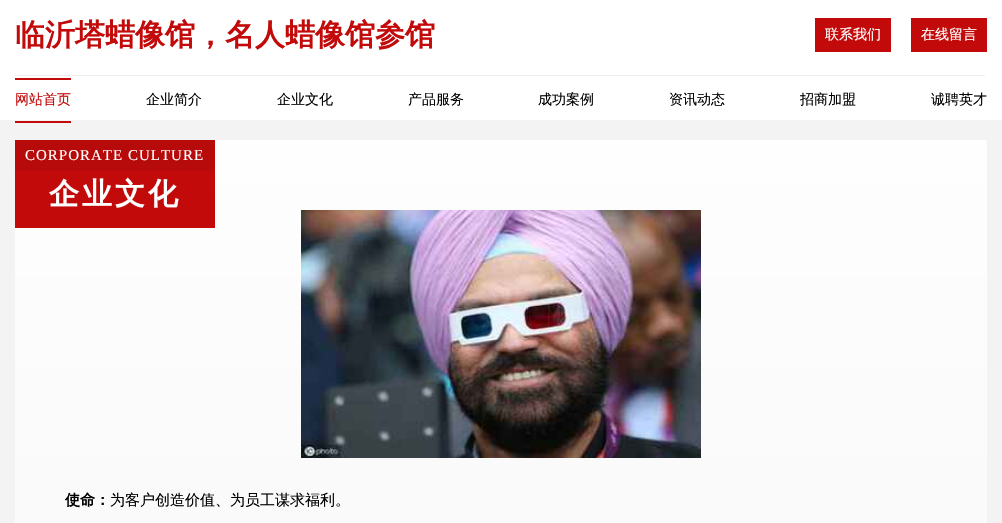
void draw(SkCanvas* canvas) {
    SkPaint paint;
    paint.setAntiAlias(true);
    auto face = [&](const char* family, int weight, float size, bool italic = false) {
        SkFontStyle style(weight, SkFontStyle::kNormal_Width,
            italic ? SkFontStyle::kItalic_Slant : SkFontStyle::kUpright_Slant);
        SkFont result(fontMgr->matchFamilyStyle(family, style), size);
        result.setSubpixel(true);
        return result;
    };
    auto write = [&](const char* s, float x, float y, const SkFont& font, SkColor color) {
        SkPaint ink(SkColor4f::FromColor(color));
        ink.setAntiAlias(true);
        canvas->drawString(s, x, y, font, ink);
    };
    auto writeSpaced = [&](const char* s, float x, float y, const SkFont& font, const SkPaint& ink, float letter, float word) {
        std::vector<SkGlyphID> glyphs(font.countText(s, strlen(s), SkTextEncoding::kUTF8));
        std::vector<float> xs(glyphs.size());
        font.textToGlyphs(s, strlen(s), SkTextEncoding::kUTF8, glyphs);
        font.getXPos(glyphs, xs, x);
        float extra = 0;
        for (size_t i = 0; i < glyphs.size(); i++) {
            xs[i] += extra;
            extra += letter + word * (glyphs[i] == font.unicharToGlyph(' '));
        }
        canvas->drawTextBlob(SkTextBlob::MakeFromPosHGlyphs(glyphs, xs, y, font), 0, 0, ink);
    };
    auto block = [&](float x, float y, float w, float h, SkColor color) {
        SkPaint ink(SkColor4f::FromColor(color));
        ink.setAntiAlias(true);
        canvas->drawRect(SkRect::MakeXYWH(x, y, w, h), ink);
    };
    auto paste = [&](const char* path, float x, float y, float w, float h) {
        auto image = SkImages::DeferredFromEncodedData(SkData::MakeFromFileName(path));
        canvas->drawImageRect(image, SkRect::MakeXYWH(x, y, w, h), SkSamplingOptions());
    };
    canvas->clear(SkColorSetRGB(243, 243, 243));
    block(0, 0, 1002, 120, SK_ColorWHITE);
    canvas->save();
    canvas->clipRect(SkRect::MakeXYWH(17, 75, 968, 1));
    paint.setColor(SkColorSetARGB(18, 0, 0, 0));
    paint.setMaskFilter(SkMaskFilter::MakeBlur(kNormal_SkBlurStyle, 0.5f));
    canvas->drawRect(SkRect::MakeXYWH(17, 0, 968, 76), paint);
    paint.setMaskFilter(nullptr);
    canvas->restore();
    auto kFont1 = face("WenQuanYi Zen Hei", 700, 30);
    write("临沂塔蜡像馆，名人蜡像馆参馆", 15, 45, kFont1, SkColorSetRGB(195, 10, 10));
    block(815, 18, 76, 34, SkColorSetRGB(195, 10, 10));
    auto kFont2 = face("WenQuanYi Zen Hei", 500, 14);
    write("联系我们", 825, 39, kFont2, SK_ColorWHITE);
    block(911, 18, 76, 34, SkColorSetRGB(195, 10, 10));
    write("在线留言", 921, 39, kFont2, SK_ColorWHITE);
    block(15, 78, 56, 2, SkColorSetRGB(195, 10, 10));
    write("网站首页", 15, 104, kFont2, SkColorSetRGB(195, 10, 10));
    block(15, 121, 56, 2, SkColorSetRGB(195, 10, 10));
    write("企业简介", 146, 104, kFont2, SK_ColorBLACK);
    write("企业文化", 277, 104, kFont2, SK_ColorBLACK);
    write("产品服务", 408, 104, kFont2, SK_ColorBLACK);
    write("成功案例", 538, 104, kFont2, SK_ColorBLACK);
    write("资讯动态", 669, 104, kFont2, SK_ColorBLACK);
    write("招商加盟", 800, 104, kFont2, SK_ColorBLACK);
    write("诚聘英才", 931, 104, kFont2, SK_ColorBLACK);
    {
        const SkColor colors[] = {SkColorSetRGB(254, 254, 254), SkColorSetRGB(243, 243, 243)};
        const float stops[] = {0, 1};
        const SkPoint ends[] = {{501, 140}, {501, 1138}};
        paint.setShader(SkGradientShader::MakeLinear(ends, colors, stops, 2, SkTileMode::kClamp));
        paint.setAlpha(255);
    }
    canvas->drawRoundRect(SkRect::MakeXYWH(15, 140, 972, 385), 2, 2, paint);
    block(15, 140, 200, 88, SkColorSetRGB(195, 10, 10));
    block(15, 140, 200, 31, SkColorSetARGB(15, 0, 0, 0));
    auto kFont3 = face("Liberation Serif", 400, 15);
    paint.setShader(nullptr);
    paint.setColor(SK_ColorWHITE);
    writeSpaced("CORPORATE CULTURE", 25, 160, kFont3, paint, 1, 0);
    writeSpaced("企业文化", 49, 204, kFont1, paint, 3, 0);
    paste("pic1.png", 301, 210, 400, 248);
    auto kFont4 = face("WenQuanYi Zen Hei", 700, 15);
    write("使命：", 65, 505, kFont4, SK_ColorBLACK);
    auto kFont5 = face("WenQuanYi Zen Hei", 500, 15);
    write("为客户创造价值、为员工谋求福利。", 110, 505, kFont5, SK_ColorBLACK);
}
